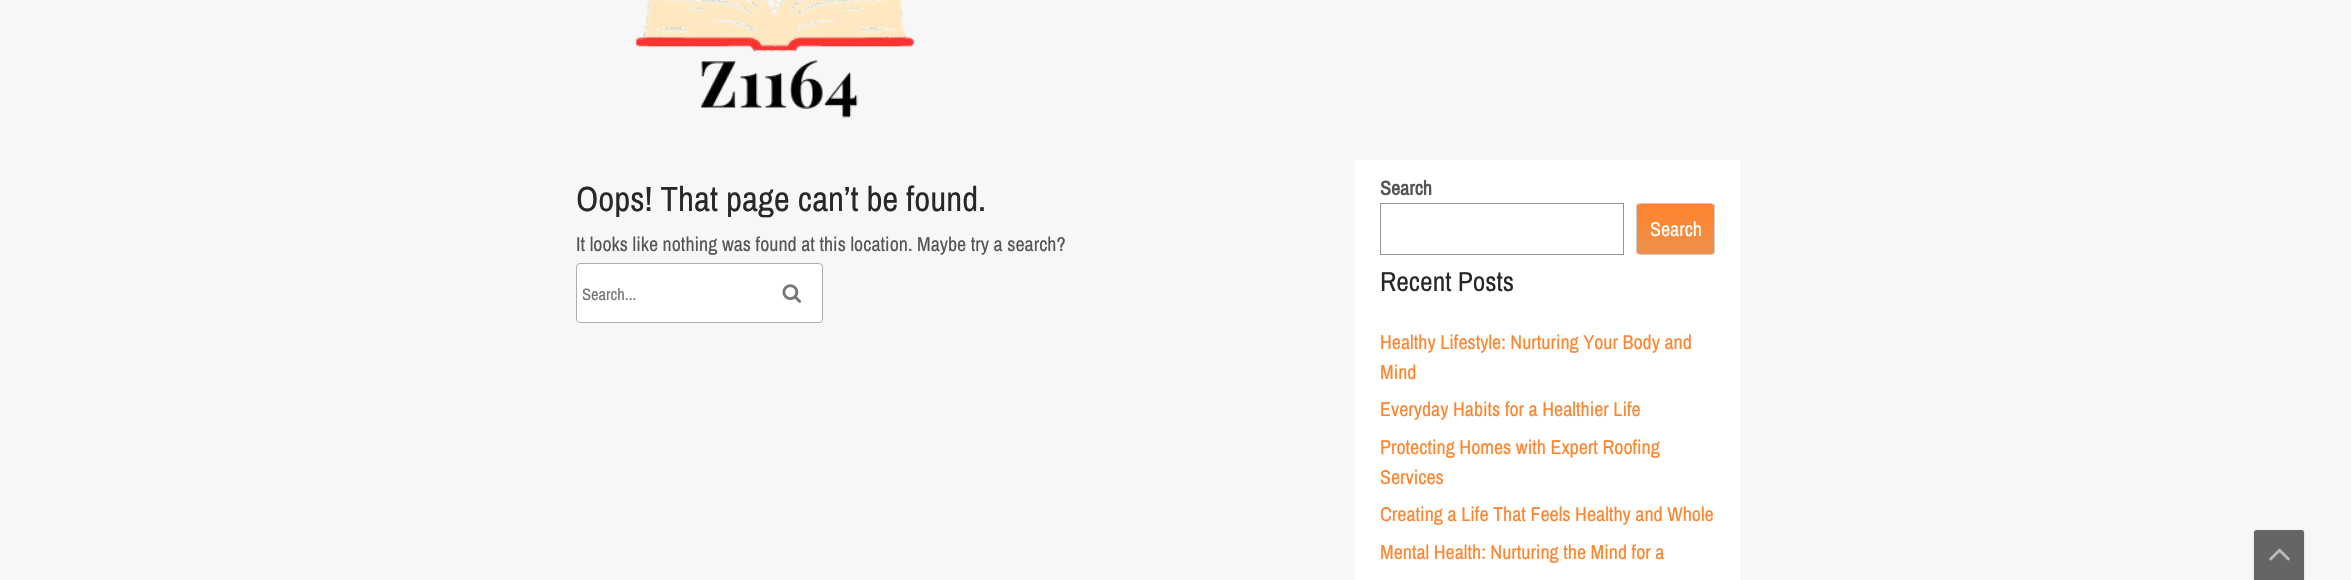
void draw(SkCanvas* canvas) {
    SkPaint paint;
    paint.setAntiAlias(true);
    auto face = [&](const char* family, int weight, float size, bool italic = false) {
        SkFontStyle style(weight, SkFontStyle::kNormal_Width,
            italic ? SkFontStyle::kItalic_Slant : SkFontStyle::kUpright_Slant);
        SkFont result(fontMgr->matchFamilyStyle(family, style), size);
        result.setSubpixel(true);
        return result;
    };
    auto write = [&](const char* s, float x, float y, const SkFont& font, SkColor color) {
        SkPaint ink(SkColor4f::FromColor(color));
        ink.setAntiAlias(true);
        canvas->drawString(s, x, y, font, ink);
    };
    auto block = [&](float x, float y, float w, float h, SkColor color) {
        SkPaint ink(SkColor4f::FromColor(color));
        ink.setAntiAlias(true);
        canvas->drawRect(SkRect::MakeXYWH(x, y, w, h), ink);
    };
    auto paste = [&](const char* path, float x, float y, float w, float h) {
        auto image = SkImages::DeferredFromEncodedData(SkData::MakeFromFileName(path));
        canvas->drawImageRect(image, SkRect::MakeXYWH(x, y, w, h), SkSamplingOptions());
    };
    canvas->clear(SkColorSetRGB(247, 247, 247));
    paste("pic1.png", 634, 0, 281, 118);
    auto kFont1 = face("Archivo Narrow", 400, 35);
    write("Oops! That page can’t be found.", 576, 211, kFont1, SkColorSetRGB(40, 40, 40));
    auto kFont2 = face("Archivo Narrow", 400, 20);
    write("It looks like nothing was found at this location. Maybe try a search?", 576, 251, kFont2, SkColorSetRGB(85, 85, 85));
    paint.setColor(SK_ColorWHITE);
    canvas->drawRoundRect(SkRect::MakeXYWH(576.5f, 263.5f, 246, 59), 3.5f, 3.5f, paint);
    paint.setStyle(SkPaint::kStroke_Style);
    paint.setStrokeWidth(1);
    paint.setColor(SkColorSetRGB(178, 174, 163));
    canvas->drawRoundRect(SkRect::MakeXYWH(576.5f, 263.5f, 246, 59), 3.5f, 3.5f, paint);
    canvas->save();
    canvas->clipRect(SkRect::MakeXYWH(583, 283, 171, 22));
    auto kFont3 = face("Archivo Narrow", 400, 16.5f);
    write("Search...", 582, 300, kFont3, SkColorSetRGB(117, 117, 117));
    canvas->restore();
    paste("pic2.png", 782, 284, 19, 19);
    block(1355, 160, 385, 420, SK_ColorWHITE);
    auto kFont4 = face("Archivo Narrow", 700, 20);
    write("Search", 1380, 195, kFont4, SkColorSetRGB(85, 85, 85));
    paint.setColor(SkColorSetRGB(148, 148, 148));
    canvas->drawRect(SkRect::MakeXYWH(1380.5f, 203.5f, 243, 51), paint);
    canvas->save();
    canvas->clipPath(SkPathBuilder().moveTo(1640, 203).lineTo(1711, 203).cubicTo(1713, 203, 1715, 205, 1715, 207).lineTo(1715, 251).cubicTo(1715, 253, 1713, 255, 1711, 255).lineTo(1640, 255).cubicTo(1638, 255, 1636, 253, 1636, 251).lineTo(1636, 207).cubicTo(1636, 205, 1638, 203, 1640, 203).close().detach(), true);
    paint.setStyle(SkPaint::kFill_Style);
    {
        const SkColor colors[] = {SkColorSetRGB(255, 132, 44), SkColorSetRGB(237, 144, 75)};
        const float stops[] = {0, 1};
        const SkPoint ends[] = {{1676, 204}, {1676, 254}};
        paint.setShader(SkGradientShader::MakeLinear(ends, colors, stops, 2, SkTileMode::kClamp));
        paint.setAlpha(255);
    }
    canvas->drawRect(SkRect::MakeXYWH(1636, 204, 79, 50), paint);
    canvas->restore();
    paint.setStyle(SkPaint::kStroke_Style);
    paint.setShader(nullptr);
    paint.setColor(SkColorSetRGB(204, 204, 204));
    canvas->drawRoundRect(SkRect::MakeXYWH(1636.5f, 203.5f, 78, 51), 3.5f, 3.5f, paint);
    write("Search", 1650, 236, kFont2, SK_ColorWHITE);
    auto kFont5 = face("Archivo Narrow", 400, 27.5f);
    write("Recent Posts", 1380, 291, kFont5, SkColorSetRGB(40, 40, 40));
    write("Healthy Lifestyle: Nurturing Your Body and", 1380, 349, kFont2, SkColorSetRGB(255, 132, 44));
    write("Mind", 1380, 379, kFont2, SkColorSetRGB(255, 132, 44));
    write("Everyday Habits for a Healthier Life", 1380, 416, kFont2, SkColorSetRGB(255, 132, 44));
    write("Protecting Homes with Expert Roofing", 1380, 454, kFont2, SkColorSetRGB(255, 132, 44));
    write("Services", 1380, 484, kFont2, SkColorSetRGB(255, 132, 44));
    write("Creating a Life That Feels Healthy and Whole", 1380, 521, kFont2, SkColorSetRGB(255, 132, 44));
    write("Mental Health: Nurturing the Mind for a", 1380, 559, kFont2, SkColorSetRGB(255, 132, 44));
    paint.setStyle(SkPaint::kFill_Style);
    paint.setColor(SkColorSetARGB(64, 25, 25, 25));
    paint.setMaskFilter(SkMaskFilter::MakeBlur(kNormal_SkBlurStyle, 1));
    canvas->drawRoundRect(SkRect::MakeXYWH(2254, 531, 50, 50), 2.5f, 2.5f, paint);
    paint.setMaskFilter(nullptr);
    paint.setColor(SkColorSetRGB(101, 101, 101));
    canvas->drawPath(SkPathBuilder().moveTo(2256.5f, 530).lineTo(2301.5f, 530).cubicTo(2303, 530, 2304, 531, 2304, 532.5f).lineTo(2304, 580).lineTo(2254, 580).lineTo(2254, 532.5f).cubicTo(2254, 531, 2255, 530, 2256.5f, 530).close().detach(), paint);
    paste("pic3.png", 2269, 548, 21, 13);
}
